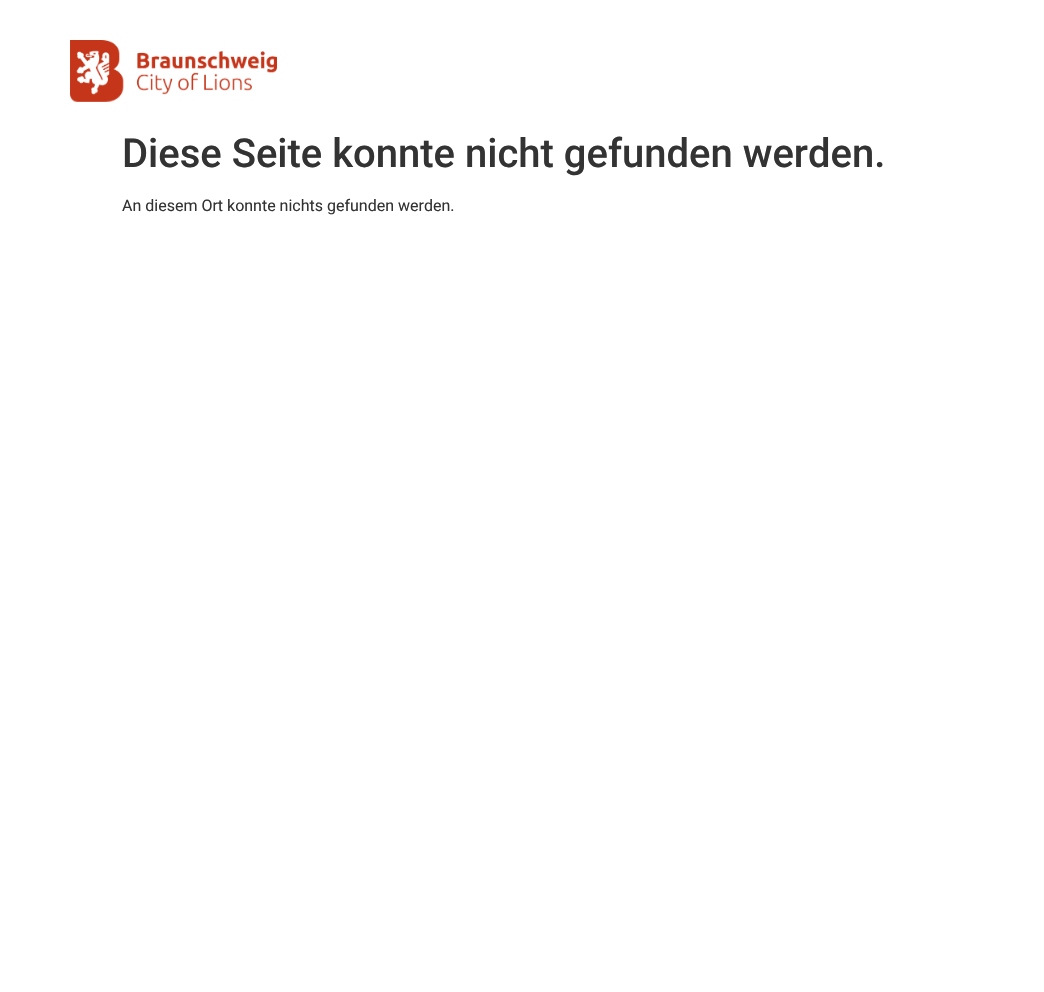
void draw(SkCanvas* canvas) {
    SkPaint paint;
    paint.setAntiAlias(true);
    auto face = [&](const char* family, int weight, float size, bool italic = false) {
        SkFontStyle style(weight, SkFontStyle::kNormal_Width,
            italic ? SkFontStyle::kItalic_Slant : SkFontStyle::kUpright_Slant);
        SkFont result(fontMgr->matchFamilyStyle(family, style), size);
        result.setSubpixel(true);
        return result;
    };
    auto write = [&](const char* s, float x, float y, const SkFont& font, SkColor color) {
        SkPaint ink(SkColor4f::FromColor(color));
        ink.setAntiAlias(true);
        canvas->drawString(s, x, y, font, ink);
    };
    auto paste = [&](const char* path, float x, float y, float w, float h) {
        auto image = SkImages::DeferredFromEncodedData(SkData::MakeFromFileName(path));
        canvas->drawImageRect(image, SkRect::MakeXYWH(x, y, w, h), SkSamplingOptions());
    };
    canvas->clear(SK_ColorWHITE);
    paste("pic1.png", 70, 40, 207, 62);
    auto kFont1 = face("Roboto", 500, 40);
    write("Diese Seite konnte nicht gefunden werden.", 122, 167, kFont1, SkColorSetRGB(51, 51, 51));
    auto kFont2 = face("Roboto", 400, 16);
    write("An diesem Ort konnte nichts gefunden werden.", 122, 211, kFont2, SkColorSetRGB(51, 51, 51));
}
